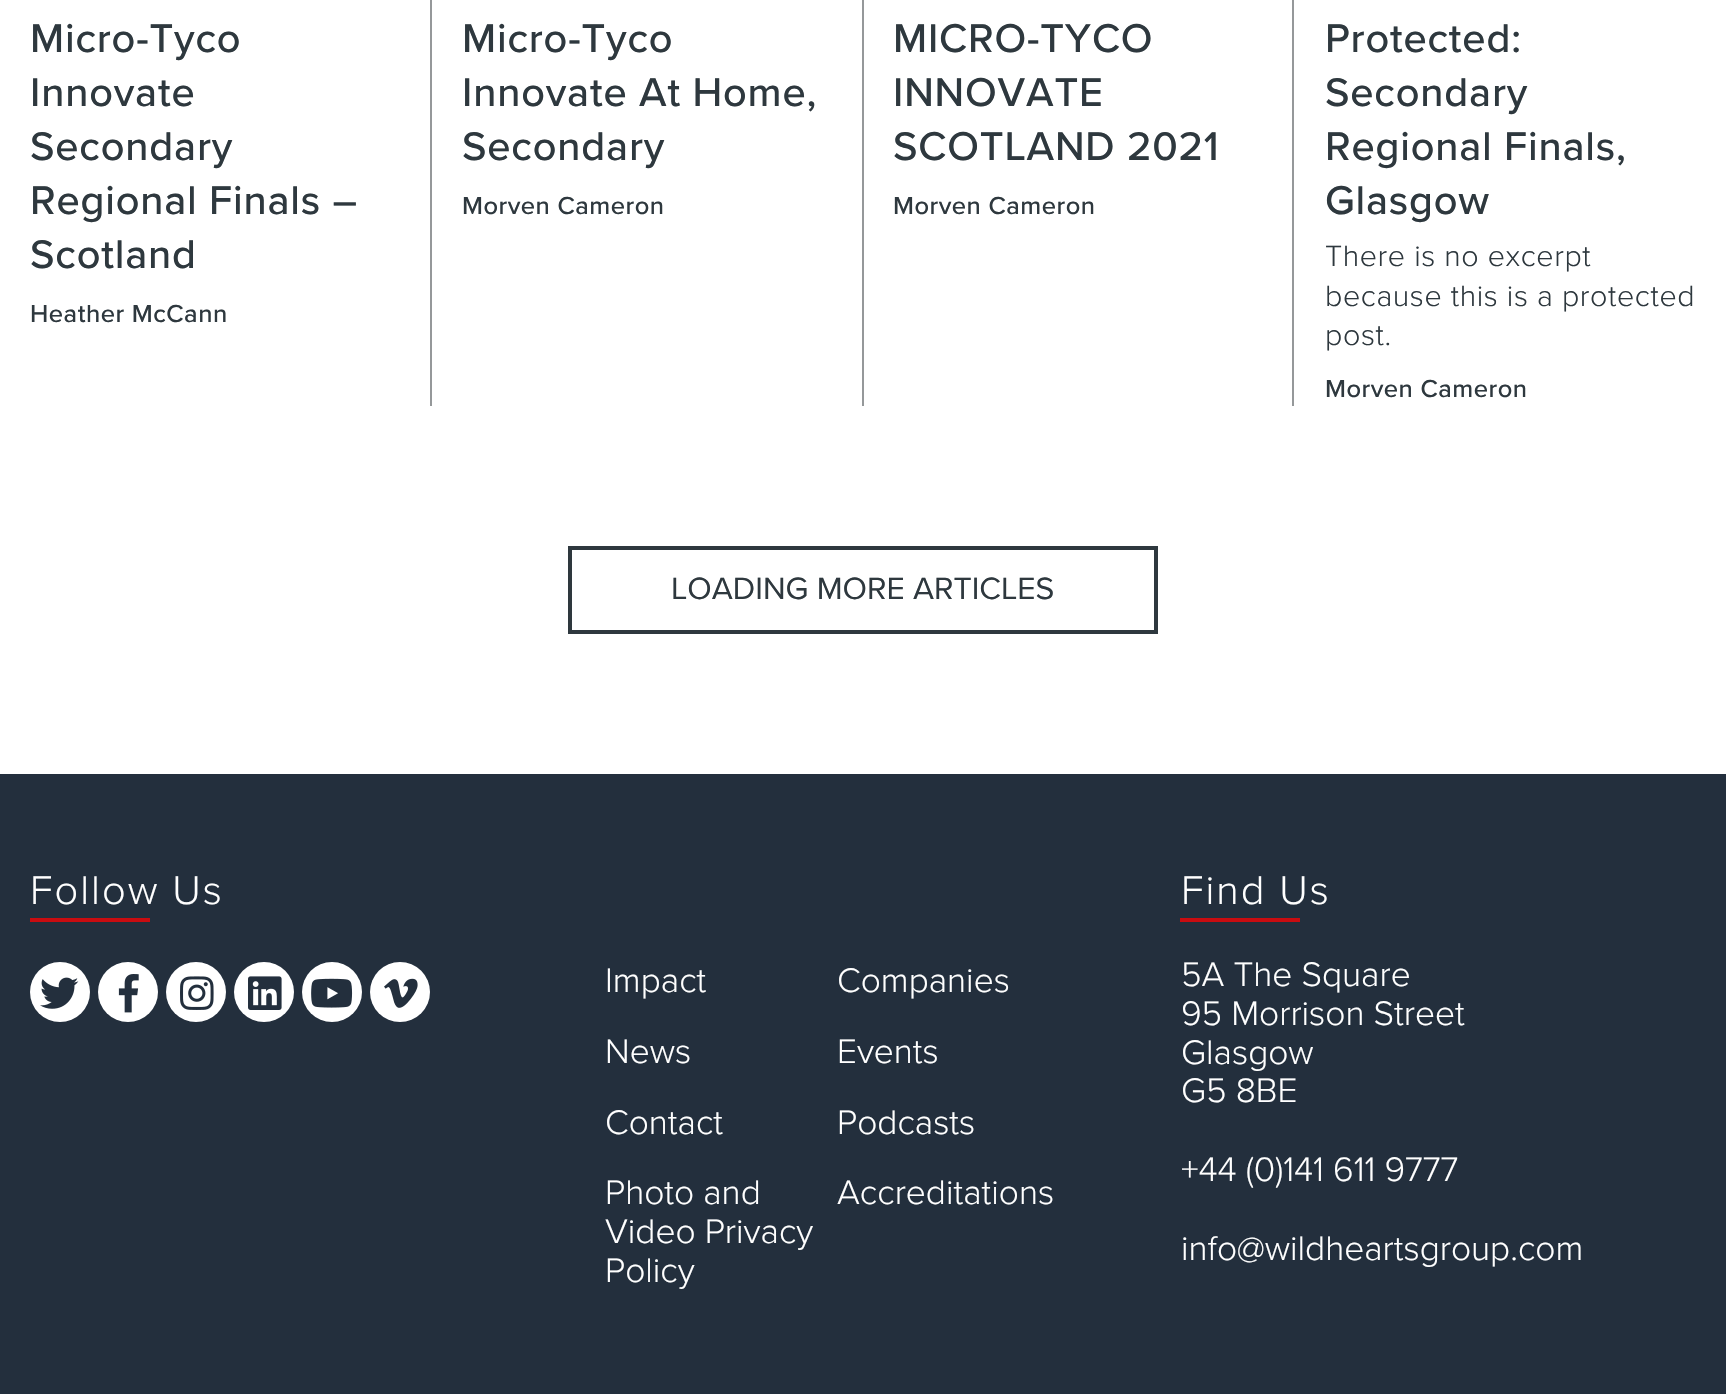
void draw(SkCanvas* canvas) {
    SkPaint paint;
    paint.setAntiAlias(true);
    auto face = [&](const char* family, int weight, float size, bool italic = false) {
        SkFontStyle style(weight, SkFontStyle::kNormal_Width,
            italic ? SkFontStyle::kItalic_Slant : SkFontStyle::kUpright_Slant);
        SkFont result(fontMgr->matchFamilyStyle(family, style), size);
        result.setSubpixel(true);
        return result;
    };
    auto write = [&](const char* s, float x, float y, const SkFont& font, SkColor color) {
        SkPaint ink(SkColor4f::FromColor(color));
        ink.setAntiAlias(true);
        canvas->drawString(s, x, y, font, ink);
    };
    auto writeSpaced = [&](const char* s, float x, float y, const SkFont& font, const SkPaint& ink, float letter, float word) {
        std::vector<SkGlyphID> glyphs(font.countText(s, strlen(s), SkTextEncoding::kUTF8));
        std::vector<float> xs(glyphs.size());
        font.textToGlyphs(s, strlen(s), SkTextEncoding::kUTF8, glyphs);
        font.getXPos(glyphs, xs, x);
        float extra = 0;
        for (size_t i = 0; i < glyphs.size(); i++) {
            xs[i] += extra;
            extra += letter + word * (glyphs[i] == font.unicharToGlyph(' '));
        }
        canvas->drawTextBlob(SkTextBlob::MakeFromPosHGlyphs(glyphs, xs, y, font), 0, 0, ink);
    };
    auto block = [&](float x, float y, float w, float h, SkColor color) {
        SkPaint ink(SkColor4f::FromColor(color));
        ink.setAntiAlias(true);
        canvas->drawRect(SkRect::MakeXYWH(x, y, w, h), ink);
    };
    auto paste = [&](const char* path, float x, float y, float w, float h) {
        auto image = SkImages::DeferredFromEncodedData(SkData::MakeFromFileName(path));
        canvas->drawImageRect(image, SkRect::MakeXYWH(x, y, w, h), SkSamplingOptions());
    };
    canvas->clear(SK_ColorWHITE);
    block(430, 0, 2, 406, SkColorSetRGB(149, 152, 154));
    auto kFont1 = face("Proxima Nova", 500, 41.5f);
    paint.setColor(SkColorSetRGB(46, 56, 62));
    writeSpaced("Micro-Tyco", 30, 52, kFont1, paint, 0.8f, 0);
    writeSpaced("Innovate", 30, 106, kFont1, paint, 0.8f, 0);
    writeSpaced("Secondary", 30, 160, kFont1, paint, 0.8f, 0);
    writeSpaced("Regional Finals –", 30, 214, kFont1, paint, 0.8f, 0);
    writeSpaced("Scotland", 30, 268, kFont1, paint, 0.8f, 0);
    auto kFont2 = face("Proxima Nova", 500, 25.5f);
    writeSpaced("Heather McCann", 30, 322, kFont2, paint, 0.5f, 0);
    block(862, 0, 2, 406, SkColorSetRGB(149, 152, 154));
    writeSpaced("Micro-Tyco", 462, 52, kFont1, paint, 0.8f, 0);
    writeSpaced("Innovate At Home,", 462, 106, kFont1, paint, 0.8f, 0);
    writeSpaced("Secondary", 462, 160, kFont1, paint, 0.8f, 0);
    writeSpaced("Morven Cameron", 462, 214, kFont2, paint, 0.5f, 0);
    block(1292, 0, 2, 406, SkColorSetRGB(149, 152, 154));
    writeSpaced("MICRO-TYCO", 893, 52, kFont1, paint, 0.8f, 0);
    writeSpaced("INNOVATE", 893, 106, kFont1, paint, 0.8f, 0);
    writeSpaced("SCOTLAND 2021", 893, 160, kFont1, paint, 0.8f, 0);
    writeSpaced("Morven Cameron", 893, 214, kFont2, paint, 0.5f, 0);
    writeSpaced("Protected:", 1325, 52, kFont1, paint, 0.8f, 0);
    writeSpaced("Secondary", 1325, 106, kFont1, paint, 0.8f, 0);
    writeSpaced("Regional Finals,", 1325, 160, kFont1, paint, 0.8f, 0);
    writeSpaced("Glasgow", 1325, 214, kFont1, paint, 0.8f, 0);
    auto kFont3 = face("Proxima Nova", 300, 30.4f);
    writeSpaced("There is no excerpt", 1325, 266, kFont3, paint, 0.6f, 0);
    writeSpaced("because this is a protected", 1325, 306, kFont3, paint, 0.6f, 0);
    writeSpaced("post.", 1325, 345, kFont3, paint, 0.6f, 0);
    writeSpaced("Morven Cameron", 1325, 397, kFont2, paint, 0.5f, 0);
    paint.setStyle(SkPaint::kStroke_Style);
    paint.setStrokeWidth(4);
    canvas->drawRect(SkRect::MakeXYWH(570, 548, 586, 84), paint);
    auto kFont4 = face("Proxima Nova", 400, 32);
    write("LOADING MORE ARTICLES", 671, 599, kFont4, SkColorSetRGB(46, 56, 62));
    block(0, 774, 1726, 620, SkColorSetRGB(35, 47, 61));
    auto kFont5 = face("Proxima Nova", 300, 41.5f);
    paint.setStyle(SkPaint::kFill_Style);
    paint.setColor(SK_ColorWHITE);
    writeSpaced("Follow Us", 30, 904, kFont5, paint, 2, 0);
    block(30, 918, 120, 4, SkColorSetRGB(201, 12, 16));
    canvas->drawCircle(60, 992, 30, paint);
    paste("pic1.png", 40, 977, 39, 32);
    canvas->drawCircle(128, 992, 30, paint);
    paste("pic2.png", 118, 974, 21, 39);
    canvas->drawCircle(196, 992, 30, paint);
    paste("pic3.png", 180, 976, 34, 34);
    canvas->drawCircle(264, 992, 30, paint);
    paste("pic4.png", 248, 976, 34, 34);
    canvas->drawCircle(332, 992, 30, paint);
    paste("pic5.png", 311, 978, 42, 30);
    canvas->drawCircle(400, 992, 30, paint);
    paste("pic6.png", 384, 978, 34, 30);
    auto kFont6 = face("Proxima Nova", 300, 35.25f);
    write("Impact", 605, 992, kFont6, SK_ColorWHITE);
    write("News", 605, 1063, kFont6, SK_ColorWHITE);
    write("Contact", 605, 1134, kFont6, SK_ColorWHITE);
    write("Photo and", 605, 1204, kFont6, SK_ColorWHITE);
    write("Video Privacy", 605, 1243, kFont6, SK_ColorWHITE);
    write("Policy", 605, 1282, kFont6, SK_ColorWHITE);
    write("Companies", 837, 992, kFont6, SK_ColorWHITE);
    write("Events", 837, 1063, kFont6, SK_ColorWHITE);
    write("Podcasts", 837, 1134, kFont6, SK_ColorWHITE);
    write("Accreditations", 837, 1204, kFont6, SK_ColorWHITE);
    writeSpaced("Find Us", 1181, 904, kFont5, paint, 2, 0);
    block(1180, 918, 120, 4, SkColorSetRGB(201, 12, 16));
    write("5A The Square", 1181, 986, kFont6, SK_ColorWHITE);
    write("95 Morrison Street", 1181, 1025, kFont6, SK_ColorWHITE);
    write("Glasgow", 1181, 1064, kFont6, SK_ColorWHITE);
    write("G5 8BE", 1181, 1102, kFont6, SK_ColorWHITE);
    write("+44 (0)141 611 9777", 1181, 1181, kFont6, SK_ColorWHITE);
    write("info@wildheartsgroup.com", 1181, 1260, kFont6, SK_ColorWHITE);
}
